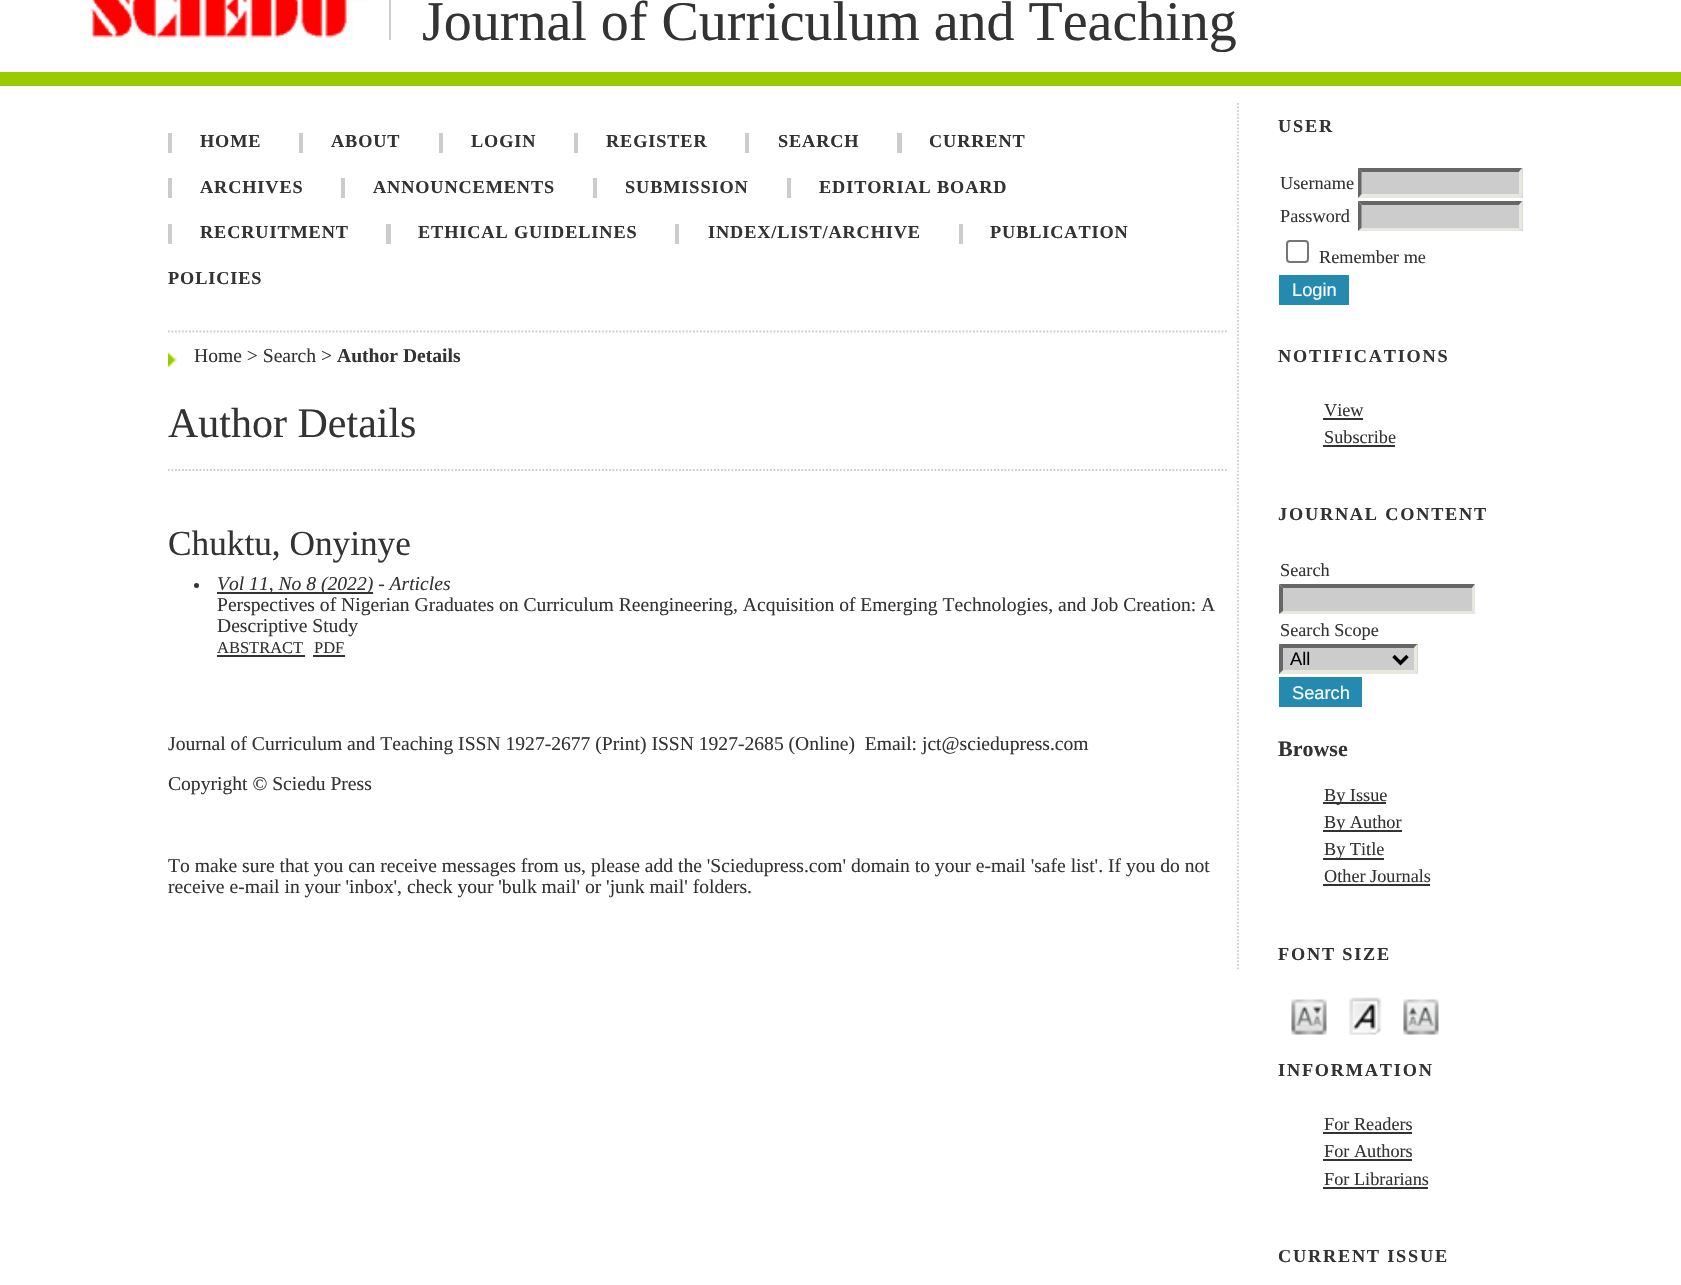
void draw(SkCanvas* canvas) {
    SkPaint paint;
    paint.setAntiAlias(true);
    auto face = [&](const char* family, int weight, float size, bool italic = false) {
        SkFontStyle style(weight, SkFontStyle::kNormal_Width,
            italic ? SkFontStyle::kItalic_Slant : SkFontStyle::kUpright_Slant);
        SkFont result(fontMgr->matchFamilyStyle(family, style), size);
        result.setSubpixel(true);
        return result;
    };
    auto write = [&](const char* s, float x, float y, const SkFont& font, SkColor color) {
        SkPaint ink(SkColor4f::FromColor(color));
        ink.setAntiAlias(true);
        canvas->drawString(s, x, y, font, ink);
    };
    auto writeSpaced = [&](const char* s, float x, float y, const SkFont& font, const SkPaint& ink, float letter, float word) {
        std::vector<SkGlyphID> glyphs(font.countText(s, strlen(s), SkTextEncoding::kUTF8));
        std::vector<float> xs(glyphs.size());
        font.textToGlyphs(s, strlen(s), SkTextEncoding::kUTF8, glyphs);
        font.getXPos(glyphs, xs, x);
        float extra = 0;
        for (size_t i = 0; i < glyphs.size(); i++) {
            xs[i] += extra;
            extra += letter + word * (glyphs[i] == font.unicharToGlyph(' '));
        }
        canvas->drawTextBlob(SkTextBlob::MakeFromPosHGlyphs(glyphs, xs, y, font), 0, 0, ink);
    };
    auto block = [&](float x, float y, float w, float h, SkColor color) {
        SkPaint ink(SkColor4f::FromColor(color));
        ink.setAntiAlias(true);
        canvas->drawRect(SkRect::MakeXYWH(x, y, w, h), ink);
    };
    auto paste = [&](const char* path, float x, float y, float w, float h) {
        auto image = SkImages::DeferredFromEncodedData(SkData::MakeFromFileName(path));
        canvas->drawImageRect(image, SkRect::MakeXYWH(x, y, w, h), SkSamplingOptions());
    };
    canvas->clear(SK_ColorWHITE);
    block(0, 72, 1681, 14, SkColorSetRGB(153, 204, 0));
    paste("pic1.png", 87, 0, 280, 41);
    block(389, 0, 2, 40, SkColorSetRGB(204, 204, 204));
    auto kFont1 = face("Liberation Serif", 400, 56);
    write("Journal of Curriculum and Teaching", 422, 40, kFont1, SkColorSetRGB(51, 51, 51));
    paint.setStyle(SkPaint::kStroke_Style);
    paint.setStrokeWidth(1.8f);
    paint.setColor(SkColorSetRGB(204, 204, 204));
    paint.setPathEffect(SkDashPathEffect::Make({{1.75f, 1.75f}}, 0));
    canvas->drawPath(SkPathBuilder().moveTo(1238, 103).lineTo(1238, 971).detach(), paint);
    paint.setPathEffect(nullptr);
    auto kFont2 = face("Liberation Serif", 700, 18.25f);
    paint.setStyle(SkPaint::kFill_Style);
    paint.setColor(SkColorSetRGB(51, 51, 51));
    writeSpaced("HOME", 200, 147, kFont2, paint, 0.9f, 0);
    block(168, 133, 4, 20, SkColorSetRGB(204, 204, 204));
    writeSpaced("ABOUT", 331, 147, kFont2, paint, 0.9f, 0);
    block(299, 133, 4, 20, SkColorSetRGB(204, 204, 204));
    writeSpaced("LOGIN", 471, 147, kFont2, paint, 0.9f, 0);
    block(439, 133, 4, 20, SkColorSetRGB(204, 204, 204));
    writeSpaced("REGISTER", 606, 147, kFont2, paint, 0.9f, 0);
    block(574, 133, 4, 20, SkColorSetRGB(204, 204, 204));
    writeSpaced("SEARCH", 778, 147, kFont2, paint, 0.9f, 0);
    block(745, 133, 4, 20, SkColorSetRGB(204, 204, 204));
    writeSpaced("CURRENT", 929, 147, kFont2, paint, 0.9f, 0);
    block(897, 133, 5, 20, SkColorSetRGB(204, 204, 204));
    writeSpaced("ARCHIVES", 200, 193, kFont2, paint, 0.9f, 0);
    block(168, 178, 4, 20, SkColorSetRGB(204, 204, 204));
    writeSpaced("ANNOUNCEMENTS", 373, 193, kFont2, paint, 0.9f, 0);
    block(341, 178, 4, 20, SkColorSetRGB(204, 204, 204));
    writeSpaced("SUBMISSION", 625, 193, kFont2, paint, 0.9f, 0);
    block(593, 178, 4, 20, SkColorSetRGB(204, 204, 204));
    writeSpaced("EDITORIAL BOARD", 819, 193, kFont2, paint, 0.9f, 0);
    block(787, 178, 4, 20, SkColorSetRGB(204, 204, 204));
    writeSpaced("RECRUITMENT", 200, 238, kFont2, paint, 0.9f, 0);
    block(168, 224, 4, 20, SkColorSetRGB(204, 204, 204));
    writeSpaced("ETHICAL GUIDELINES", 418, 238, kFont2, paint, 0.9f, 0);
    block(386, 224, 5, 20, SkColorSetRGB(204, 204, 204));
    writeSpaced("INDEX/LIST/ARCHIVE", 708, 238, kFont2, paint, 0.9f, 0);
    block(675, 224, 4, 20, SkColorSetRGB(204, 204, 204));
    writeSpaced("PUBLICATION", 990, 238, kFont2, paint, 0.9f, 0);
    block(959, 224, 4, 20, SkColorSetRGB(204, 204, 204));
    writeSpaced("POLICIES", 168, 284, kFont2, paint, 0.9f, 0);
    paste("pic2.png", 168, 352, 9, 16);
    paint.setStyle(SkPaint::kStroke_Style);
    paint.setColor(SkColorSetRGB(204, 204, 204));
    paint.setPathEffect(SkDashPathEffect::Make({{1.75f, 1.75f}}, 0));
    canvas->drawPath(SkPathBuilder().moveTo(168, 331.5f).lineTo(1228.5f, 331.5f).detach(), paint);
    paint.setPathEffect(nullptr);
    auto kFont3 = face("Liberation Serif", 400, 19.6f);
    write("Home > Search >", 194, 362, kFont3, SkColorSetRGB(51, 51, 51));
    auto kFont4 = face("Liberation Serif", 700, 19.6f);
    write("Author Details", 337, 362, kFont4, SkColorSetRGB(51, 51, 51));
    auto kFont5 = face("Liberation Serif", 400, 42);
    write("Author Details", 168, 437, kFont5, SkColorSetRGB(51, 51, 51));
    paint.setPathEffect(SkDashPathEffect::Make({{1.75f, 1.75f}}, 0));
    canvas->drawPath(SkPathBuilder().moveTo(168, 470).lineTo(1228.5f, 470).detach(), paint);
    paint.setPathEffect(nullptr);
    auto kFont6 = face("Liberation Serif", 400, 35.25f);
    write("Chuktu, Onyinye", 168, 555, kFont6, SkColorSetRGB(51, 51, 51));
    paint.setStyle(SkPaint::kFill_Style);
    paint.setColor(SkColorSetRGB(51, 51, 51));
    canvas->drawCircle(196.5f, 585.5f, 2.5f, paint);
    block(217, 592, 156, 2, SkColorSetRGB(51, 51, 51));
    auto kFont7 = face("Liberation Serif", 400, 19.6f, true);
    write("Vol 11, No 8 (2022) - Articles", 217, 590, kFont7, SkColorSetRGB(51, 51, 51));
    write("Perspectives of Nigerian Graduates on Curriculum Reengineering, Acquisition of Emerging Technologies, and Job Creation: A", 217, 611, kFont3, SkColorSetRGB(51, 51, 51));
    write("Descriptive Study", 217, 632, kFont3, SkColorSetRGB(51, 51, 51));
    auto kFont8 = face("Liberation Serif", 400, 16.5f);
    write("ABSTRACT", 217, 653, kFont8, SkColorSetRGB(51, 51, 51));
    block(217, 655, 88, 2, SkColorSetRGB(51, 51, 51));
    write("PDF", 314, 653, kFont8, SkColorSetRGB(51, 51, 51));
    block(313, 655, 32, 2, SkColorSetRGB(51, 51, 51));
    write("Journal of Curriculum and Teaching ISSN 1927-2677 (Print) ISSN 1927-2685 (Online)  Email: jct@sciedupress.com", 168, 750, kFont3, SkColorSetRGB(51, 51, 51));
    write("Copyright © Sciedu Press", 168, 790, kFont3, SkColorSetRGB(51, 51, 51));
    write("To make sure that you can receive messages from us, please add the 'Sciedupress.com' domain to your e-mail 'safe list'. If you do not", 168, 872, kFont3, SkColorSetRGB(51, 51, 51));
    write("receive e-mail in your 'inbox', check your 'bulk mail' or 'junk mail' folders.", 168, 893, kFont3, SkColorSetRGB(51, 51, 51));
    writeSpaced("USER", 1278, 132, kFont2, paint, 1.8f, 0);
    auto kFont9 = face("Liberation Serif", 400, 18.25f);
    write("Username", 1280, 189, kFont9, SkColorSetRGB(51, 51, 51));
    block(1358, 168, 165, 30, SkColorSetRGB(204, 204, 204));
    paint.setColor(SkColorSetRGB(102, 102, 102));
    canvas->drawPath(SkPathBuilder().moveTo(1358, 168).lineTo(1522, 168).lineTo(1519, 172).lineTo(1362, 172).close().detach(), paint);
    paint.setColor(SkColorSetRGB(232, 232, 225));
    canvas->drawPath(SkPathBuilder().moveTo(1522.5f, 168).lineTo(1522.5f, 198).lineTo(1519, 194).lineTo(1519, 171.5f).close().detach(), paint);
    canvas->drawPath(SkPathBuilder().moveTo(1522, 198).lineTo(1358, 198).lineTo(1362, 194).lineTo(1519, 194).close().detach(), paint);
    paint.setColor(SkColorSetRGB(102, 102, 102));
    canvas->drawPath(SkPathBuilder().moveTo(1358, 198).lineTo(1358, 168).lineTo(1361.5f, 171.5f).lineTo(1361.5f, 194).close().detach(), paint);
    write("Password", 1280, 222, kFont9, SkColorSetRGB(51, 51, 51));
    block(1358, 201, 165, 30, SkColorSetRGB(204, 204, 204));
    canvas->drawPath(SkPathBuilder().moveTo(1358, 201).lineTo(1522, 201).lineTo(1519, 205).lineTo(1362, 205).close().detach(), paint);
    paint.setColor(SkColorSetRGB(232, 232, 225));
    canvas->drawPath(SkPathBuilder().moveTo(1522.5f, 201).lineTo(1522.5f, 231).lineTo(1519, 227.5f).lineTo(1519, 205).close().detach(), paint);
    canvas->drawPath(SkPathBuilder().moveTo(1522, 231).lineTo(1358, 231).lineTo(1362, 228).lineTo(1519, 228).close().detach(), paint);
    paint.setColor(SkColorSetRGB(102, 102, 102));
    canvas->drawPath(SkPathBuilder().moveTo(1358, 231).lineTo(1358, 201).lineTo(1361.5f, 205).lineTo(1361.5f, 227.5f).close().detach(), paint);
    paint.setStyle(SkPaint::kStroke_Style);
    paint.setStrokeWidth(2);
    paint.setColor(SkColorSetRGB(118, 118, 118));
    canvas->drawRoundRect(SkRect::MakeXYWH(1287, 241, 21, 21), 3, 3, paint);
    write("Remember me", 1319, 263, kFont9, SkColorSetRGB(51, 51, 51));
    block(1279, 275, 70, 30, SkColorSetRGB(37, 138, 175));
    auto kFont10 = face("Liberation Sans", 400, 18.25f);
    write("Login", 1292, 296, kFont10, SK_ColorWHITE);
    paint.setStyle(SkPaint::kFill_Style);
    paint.setColor(SkColorSetRGB(51, 51, 51));
    writeSpaced("NOTIFICATIONS", 1278, 362, kFont2, paint, 1.8f, 0);
    write("View", 1324, 416, kFont9, SkColorSetRGB(51, 51, 51));
    block(1323, 418, 40, 2, SkColorSetRGB(51, 51, 51));
    write("Subscribe", 1324, 443, kFont9, SkColorSetRGB(51, 51, 51));
    block(1323, 445, 72, 2, SkColorSetRGB(51, 51, 51));
    writeSpaced("JOURNAL CONTENT", 1278, 520, kFont2, paint, 1.8f, 0);
    write("Search", 1280, 576, kFont9, SkColorSetRGB(51, 51, 51));
    block(1279, 585, 196, 29, SkColorSetRGB(204, 204, 204));
    paint.setColor(SkColorSetRGB(102, 102, 102));
    canvas->drawPath(SkPathBuilder().moveTo(1279, 584).lineTo(1475, 584).lineTo(1472, 588).lineTo(1283, 588).close().detach(), paint);
    paint.setColor(SkColorSetRGB(232, 232, 225));
    canvas->drawPath(SkPathBuilder().moveTo(1475, 584.5f).lineTo(1475, 614).lineTo(1472, 611).lineTo(1472, 588).close().detach(), paint);
    canvas->drawPath(SkPathBuilder().moveTo(1475, 614).lineTo(1279, 614).lineTo(1283, 611).lineTo(1472, 611).close().detach(), paint);
    paint.setColor(SkColorSetRGB(102, 102, 102));
    canvas->drawPath(SkPathBuilder().moveTo(1279, 614).lineTo(1279, 584.5f).lineTo(1283, 588).lineTo(1283, 611).close().detach(), paint);
    write("Search Scope", 1280, 636, kFont9, SkColorSetRGB(51, 51, 51));
    block(1279, 644, 139, 30, SkColorSetRGB(204, 204, 204));
    canvas->drawPath(SkPathBuilder().moveTo(1279, 644).lineTo(1418, 644).lineTo(1414, 648).lineTo(1283, 648).close().detach(), paint);
    paint.setColor(SkColorSetRGB(232, 232, 225));
    canvas->drawPath(SkPathBuilder().moveTo(1417.5f, 644).lineTo(1417.5f, 674).lineTo(1414, 670).lineTo(1414, 647.5f).close().detach(), paint);
    canvas->drawPath(SkPathBuilder().moveTo(1418, 674).lineTo(1279, 674).lineTo(1283, 670).lineTo(1414, 670).close().detach(), paint);
    paint.setColor(SkColorSetRGB(102, 102, 102));
    canvas->drawPath(SkPathBuilder().moveTo(1279, 674).lineTo(1279, 644).lineTo(1283, 647.5f).lineTo(1283, 670).close().detach(), paint);
    paint.setStyle(SkPaint::kStroke_Style);
    paint.setStrokeWidth(3.5f);
    paint.setColor(SK_ColorBLACK);
    canvas->drawPath(SkPathBuilder().moveTo(1393.5f, 656).lineTo(1400.5f, 663).lineTo(1407.5f, 656).detach(), paint);
    write("All", 1290, 665, kFont10, SK_ColorBLACK);
    block(1279, 677, 83, 30, SkColorSetRGB(37, 138, 175));
    write("Search", 1292, 699, kFont10, SK_ColorWHITE);
    auto kFont11 = face("Liberation Serif", 700, 22);
    write("Browse", 1278, 756, kFont11, SkColorSetRGB(51, 51, 51));
    block(1323, 802, 63, 2, SkColorSetRGB(51, 51, 51));
    write("By Issue", 1324, 801, kFont9, SkColorSetRGB(51, 51, 51));
    block(1323, 830, 79, 2, SkColorSetRGB(51, 51, 51));
    write("By Author", 1324, 828, kFont9, SkColorSetRGB(51, 51, 51));
    block(1323, 858, 61, 2, SkColorSetRGB(51, 51, 51));
    write("By Title", 1324, 855, kFont9, SkColorSetRGB(51, 51, 51));
    write("Other Journals", 1324, 882, kFont9, SkColorSetRGB(51, 51, 51));
    block(1323, 884, 107, 2, SkColorSetRGB(51, 51, 51));
    paint.setStyle(SkPaint::kFill_Style);
    paint.setColor(SkColorSetRGB(51, 51, 51));
    writeSpaced("FONT SIZE", 1278, 960, kFont2, paint, 1.8f, 0);
    paste("pic3.png", 1291, 999, 36, 36);
    paste("pic4.png", 1349, 997, 33, 38);
    paste("pic5.png", 1403, 999, 36, 36);
    writeSpaced("INFORMATION", 1278, 1076, kFont2, paint, 1.8f, 0);
    write("For Readers", 1324, 1130, kFont9, SkColorSetRGB(51, 51, 51));
    block(1323, 1132, 89, 2, SkColorSetRGB(51, 51, 51));
    write("For Authors", 1324, 1157, kFont9, SkColorSetRGB(51, 51, 51));
    block(1323, 1159, 89, 2, SkColorSetRGB(51, 51, 51));
    write("For Librarians", 1324, 1185, kFont9, SkColorSetRGB(51, 51, 51));
    block(1323, 1187, 105, 2, SkColorSetRGB(51, 51, 51));
    writeSpaced("CURRENT ISSUE", 1278, 1262, kFont2, paint, 1.8f, 0);
}
